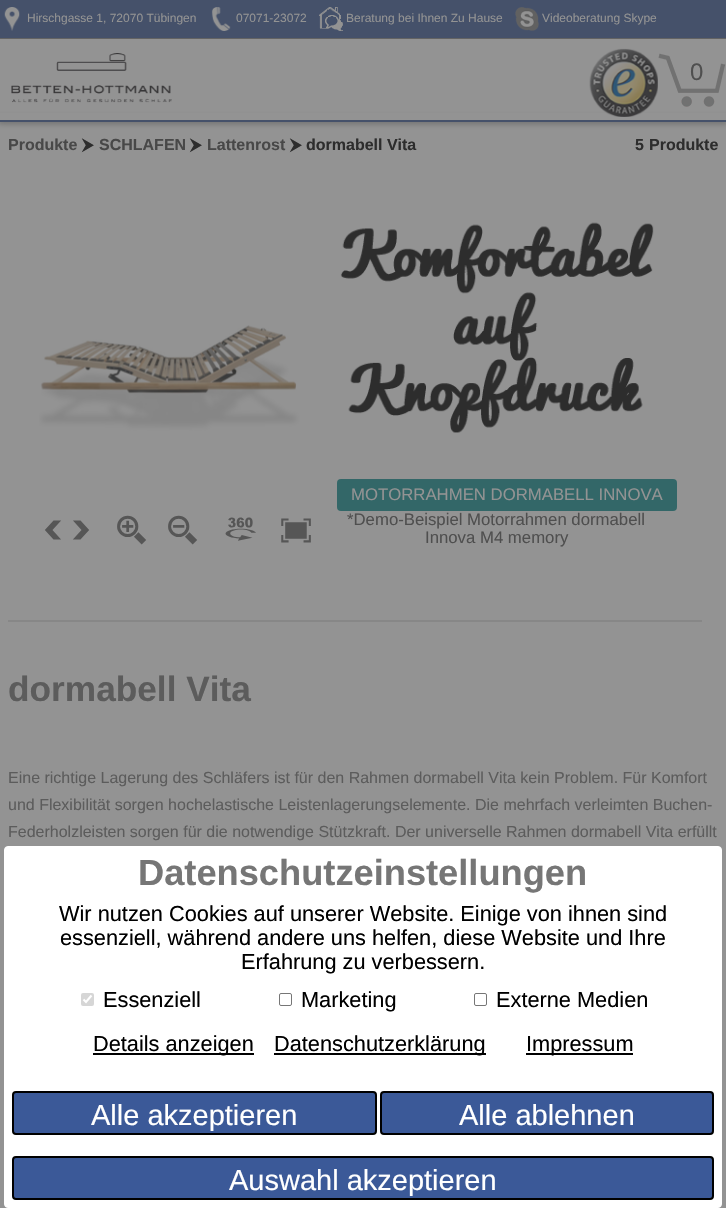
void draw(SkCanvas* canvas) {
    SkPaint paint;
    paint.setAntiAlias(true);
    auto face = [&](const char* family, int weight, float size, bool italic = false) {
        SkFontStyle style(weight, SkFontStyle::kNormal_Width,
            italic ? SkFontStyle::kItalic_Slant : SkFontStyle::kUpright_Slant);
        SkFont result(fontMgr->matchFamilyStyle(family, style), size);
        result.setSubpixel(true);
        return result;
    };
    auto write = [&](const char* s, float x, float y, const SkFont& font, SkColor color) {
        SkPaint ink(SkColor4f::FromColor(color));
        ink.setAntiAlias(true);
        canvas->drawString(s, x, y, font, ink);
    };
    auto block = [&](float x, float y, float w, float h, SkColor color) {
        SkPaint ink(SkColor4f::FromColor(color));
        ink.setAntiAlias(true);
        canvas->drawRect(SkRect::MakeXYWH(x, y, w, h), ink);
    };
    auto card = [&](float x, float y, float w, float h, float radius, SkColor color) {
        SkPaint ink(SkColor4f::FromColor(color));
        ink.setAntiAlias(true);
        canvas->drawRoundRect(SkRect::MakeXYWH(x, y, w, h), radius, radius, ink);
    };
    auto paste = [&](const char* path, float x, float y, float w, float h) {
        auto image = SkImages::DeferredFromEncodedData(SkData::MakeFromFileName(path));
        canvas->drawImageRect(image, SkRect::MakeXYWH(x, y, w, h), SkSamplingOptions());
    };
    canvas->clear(SkColorSetRGB(147, 147, 147));
    paint.setColor(SkColorSetRGB(99, 99, 99));
    paint.setMaskFilter(SkMaskFilter::MakeBlur(kNormal_SkBlurStyle, 3));
    canvas->drawRect(SkRect::MakeXYWH(-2, 118, 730, 5), paint);
    paint.setMaskFilter(nullptr);
    block(0, 113, 726, 7, SkColorSetRGB(147, 147, 147));
    block(0, 0, 726, 38, SkColorSetRGB(69, 81, 106));
    block(0, 38, 726, 1, SkColorSetRGB(99, 99, 99));
    paste("pic1.png", 4, 7, 16, 24);
    auto kFont1 = face("Liberation Sans", 400, 12);
    write("Hirschgasse 1, 72070 Tübingen", 27, 22, kFont1, SkColorSetRGB(147, 147, 147));
    paste("pic2.png", 211, 7, 20, 24);
    write("07071-23072", 236, 22, kFont1, SkColorSetRGB(147, 147, 147));
    paste("pic3.png", 319, 7, 24, 24);
    write("Beratung bei Ihnen Zu Hause", 346, 22, kFont1, SkColorSetRGB(147, 147, 147));
    paste("pic4.png", 515, 7, 24, 24);
    write("Videoberatung Skype", 542, 22, kFont1, SkColorSetRGB(147, 147, 147));
    paste("pic5.png", 11, 53, 161, 50);
    paste("pic6.png", 589, 48, 69, 69);
    paste("pic7.png", 658, 53, 68, 54);
    auto kFont2 = face("Liberation Sans", 400, 24);
    write("0", 690, 80, kFont2, SkColorSetRGB(79, 79, 79));
    block(0, 120, 726, 2, SkColorSetRGB(69, 81, 106));
    auto kFont3 = face("Liberation Sans", 700, 16);
    write("Produkte", 8, 150, kFont3, SkColorSetRGB(72, 72, 72));
    auto kFont4 = face("FreeSans", 700, 16);
    write("⮞", 82, 150, kFont4, SkColorSetRGB(45, 45, 45));
    write("SCHLAFEN", 99, 150, kFont3, SkColorSetRGB(72, 72, 72));
    write("⮞", 190, 150, kFont4, SkColorSetRGB(45, 45, 45));
    write("Lattenrost", 207, 150, kFont3, SkColorSetRGB(72, 72, 72));
    write("⮞", 290, 150, kFont4, SkColorSetRGB(45, 45, 45));
    write("dormabell Vita", 306, 150, kFont3, SkColorSetRGB(45, 45, 45));
    write("5", 635, 150, kFont3, SkColorSetRGB(45, 45, 45));
    write("Produkte", 649, 150, kFont3, SkColorSetRGB(45, 45, 45));
    paste("pic8.png", 39, 325, 272, 220);
    paste("pic9.png", 340, 222, 314, 211);
    card(337, 479, 340, 32, 4, SkColorSetRGB(51, 103, 104));
    auto kFont5 = face("Liberation Sans", 400, 16.75f);
    write("MOTORRAHMEN DORMABELL INNOVA", 351, 500, kFont5, SkColorSetRGB(147, 147, 147));
    write("*Demo-Beispiel Motorrahmen dormabell", 347, 525, kFont5, SkColorSetRGB(79, 79, 79));
    write("Innova M4 memory", 425, 543, kFont5, SkColorSetRGB(79, 79, 79));
    block(8, 620, 694, 2, SkColorSetRGB(135, 135, 135));
    auto kFont6 = face("Liberation Sans", 700, 35.25f);
    write("dormabell Vita", 8, 701, kFont6, SkColorSetRGB(92, 92, 92));
    auto kFont7 = face("Liberation Sans", 400, 16);
    write("Eine richtige Lagerung des Schläfers ist für den Rahmen dormabell Vita kein Problem. Für Komfort", 8, 783, kFont7, SkColorSetRGB(92, 92, 92));
    write("und Flexibilität sorgen hochelastische Leistenlagerungselemente. Die mehrfach verleimten Buchen-", 8, 810, kFont7, SkColorSetRGB(92, 92, 92));
    write("Federholzleisten sorgen für die notwendige Stützkraft. Der universelle Rahmen dormabell Vita erfüllt", 8, 837, kFont7, SkColorSetRGB(92, 92, 92));
    paint.setColor(SK_ColorWHITE);
    canvas->drawRoundRect(SkRect::MakeXYWH(4.5f, 846.5f, 717, 361), 3.5f, 3.5f, paint);
    paint.setStyle(SkPaint::kStroke_Style);
    paint.setStrokeWidth(1);
    canvas->drawRoundRect(SkRect::MakeXYWH(4.5f, 846.5f, 717, 361), 3.5f, 3.5f, paint);
    auto kFont8 = face("Liberation Sans", 700, 36.25f);
    write("Datenschutzeinstellungen", 138, 885, kFont8, SkColorSetRGB(118, 118, 118));
    auto kFont9 = face("Liberation Sans", 400, 21.75f);
    write("Wir nutzen Cookies auf unserer Website. Einige von ihnen sind", 59, 921, kFont9, SK_ColorBLACK);
    write("essenziell, während andere uns helfen, diese Website und Ihre", 60, 945, kFont9, SK_ColorBLACK);
    write("Erfahrung zu verbessern.", 241, 969, kFont9, SK_ColorBLACK);
    card(81, 993, 13, 13, 2, SkColorSetRGB(214, 214, 214));
    paint.setStrokeWidth(2.1f);
    canvas->drawPath(SkPathBuilder().moveTo(83.5f, 999.5f).lineTo(86, 1002).lineTo(91.5f, 995.5f).detach(), paint);
    write("Essenziell", 103, 1007, kFont9, SK_ColorBLACK);
    paint.setStrokeWidth(1);
    paint.setColor(SkColorSetRGB(118, 118, 118));
    canvas->drawRoundRect(SkRect::MakeXYWH(279.5f, 993.5f, 12, 12), 1.5f, 1.5f, paint);
    write("Marketing", 301, 1007, kFont9, SK_ColorBLACK);
    canvas->drawRoundRect(SkRect::MakeXYWH(474.5f, 993.5f, 12, 12), 1.5f, 1.5f, paint);
    write("Externe Medien", 496, 1007, kFont9, SK_ColorBLACK);
    block(93, 1053, 161, 2, SK_ColorBLACK);
    write("Details anzeigen", 93, 1051, kFont9, SK_ColorBLACK);
    block(274, 1053, 212, 2, SK_ColorBLACK);
    write("Datenschutzerklärung", 274, 1051, kFont9, SK_ColorBLACK);
    block(526, 1053, 107, 2, SK_ColorBLACK);
    write("Impressum", 526, 1051, kFont9, SK_ColorBLACK);
    paint.setStyle(SkPaint::kFill_Style);
    paint.setColor(SkColorSetRGB(59, 89, 152));
    canvas->drawRoundRect(SkRect::MakeXYWH(13, 1092, 363, 42), 3, 3, paint);
    paint.setStyle(SkPaint::kStroke_Style);
    paint.setStrokeWidth(2);
    paint.setColor(SK_ColorBLACK);
    canvas->drawRoundRect(SkRect::MakeXYWH(13, 1092, 363, 42), 3, 3, paint);
    auto kFont10 = face("Liberation Sans", 400, 29);
    write("Alle akzeptieren", 91, 1125, kFont10, SK_ColorWHITE);
    paint.setStyle(SkPaint::kFill_Style);
    paint.setColor(SkColorSetRGB(59, 89, 152));
    canvas->drawRoundRect(SkRect::MakeXYWH(381, 1092, 332, 42), 3, 3, paint);
    paint.setStyle(SkPaint::kStroke_Style);
    paint.setColor(SK_ColorBLACK);
    canvas->drawRoundRect(SkRect::MakeXYWH(381, 1092, 332, 42), 3, 3, paint);
    write("Alle ablehnen", 459, 1125, kFont10, SK_ColorWHITE);
    paint.setStyle(SkPaint::kFill_Style);
    paint.setColor(SkColorSetRGB(59, 89, 152));
    canvas->drawRoundRect(SkRect::MakeXYWH(13, 1157, 700, 42), 3, 3, paint);
    paint.setStyle(SkPaint::kStroke_Style);
    paint.setColor(SK_ColorBLACK);
    canvas->drawRoundRect(SkRect::MakeXYWH(13, 1157, 700, 42), 3, 3, paint);
    write("Auswahl akzeptieren", 229, 1190, kFont10, SK_ColorWHITE);
}
